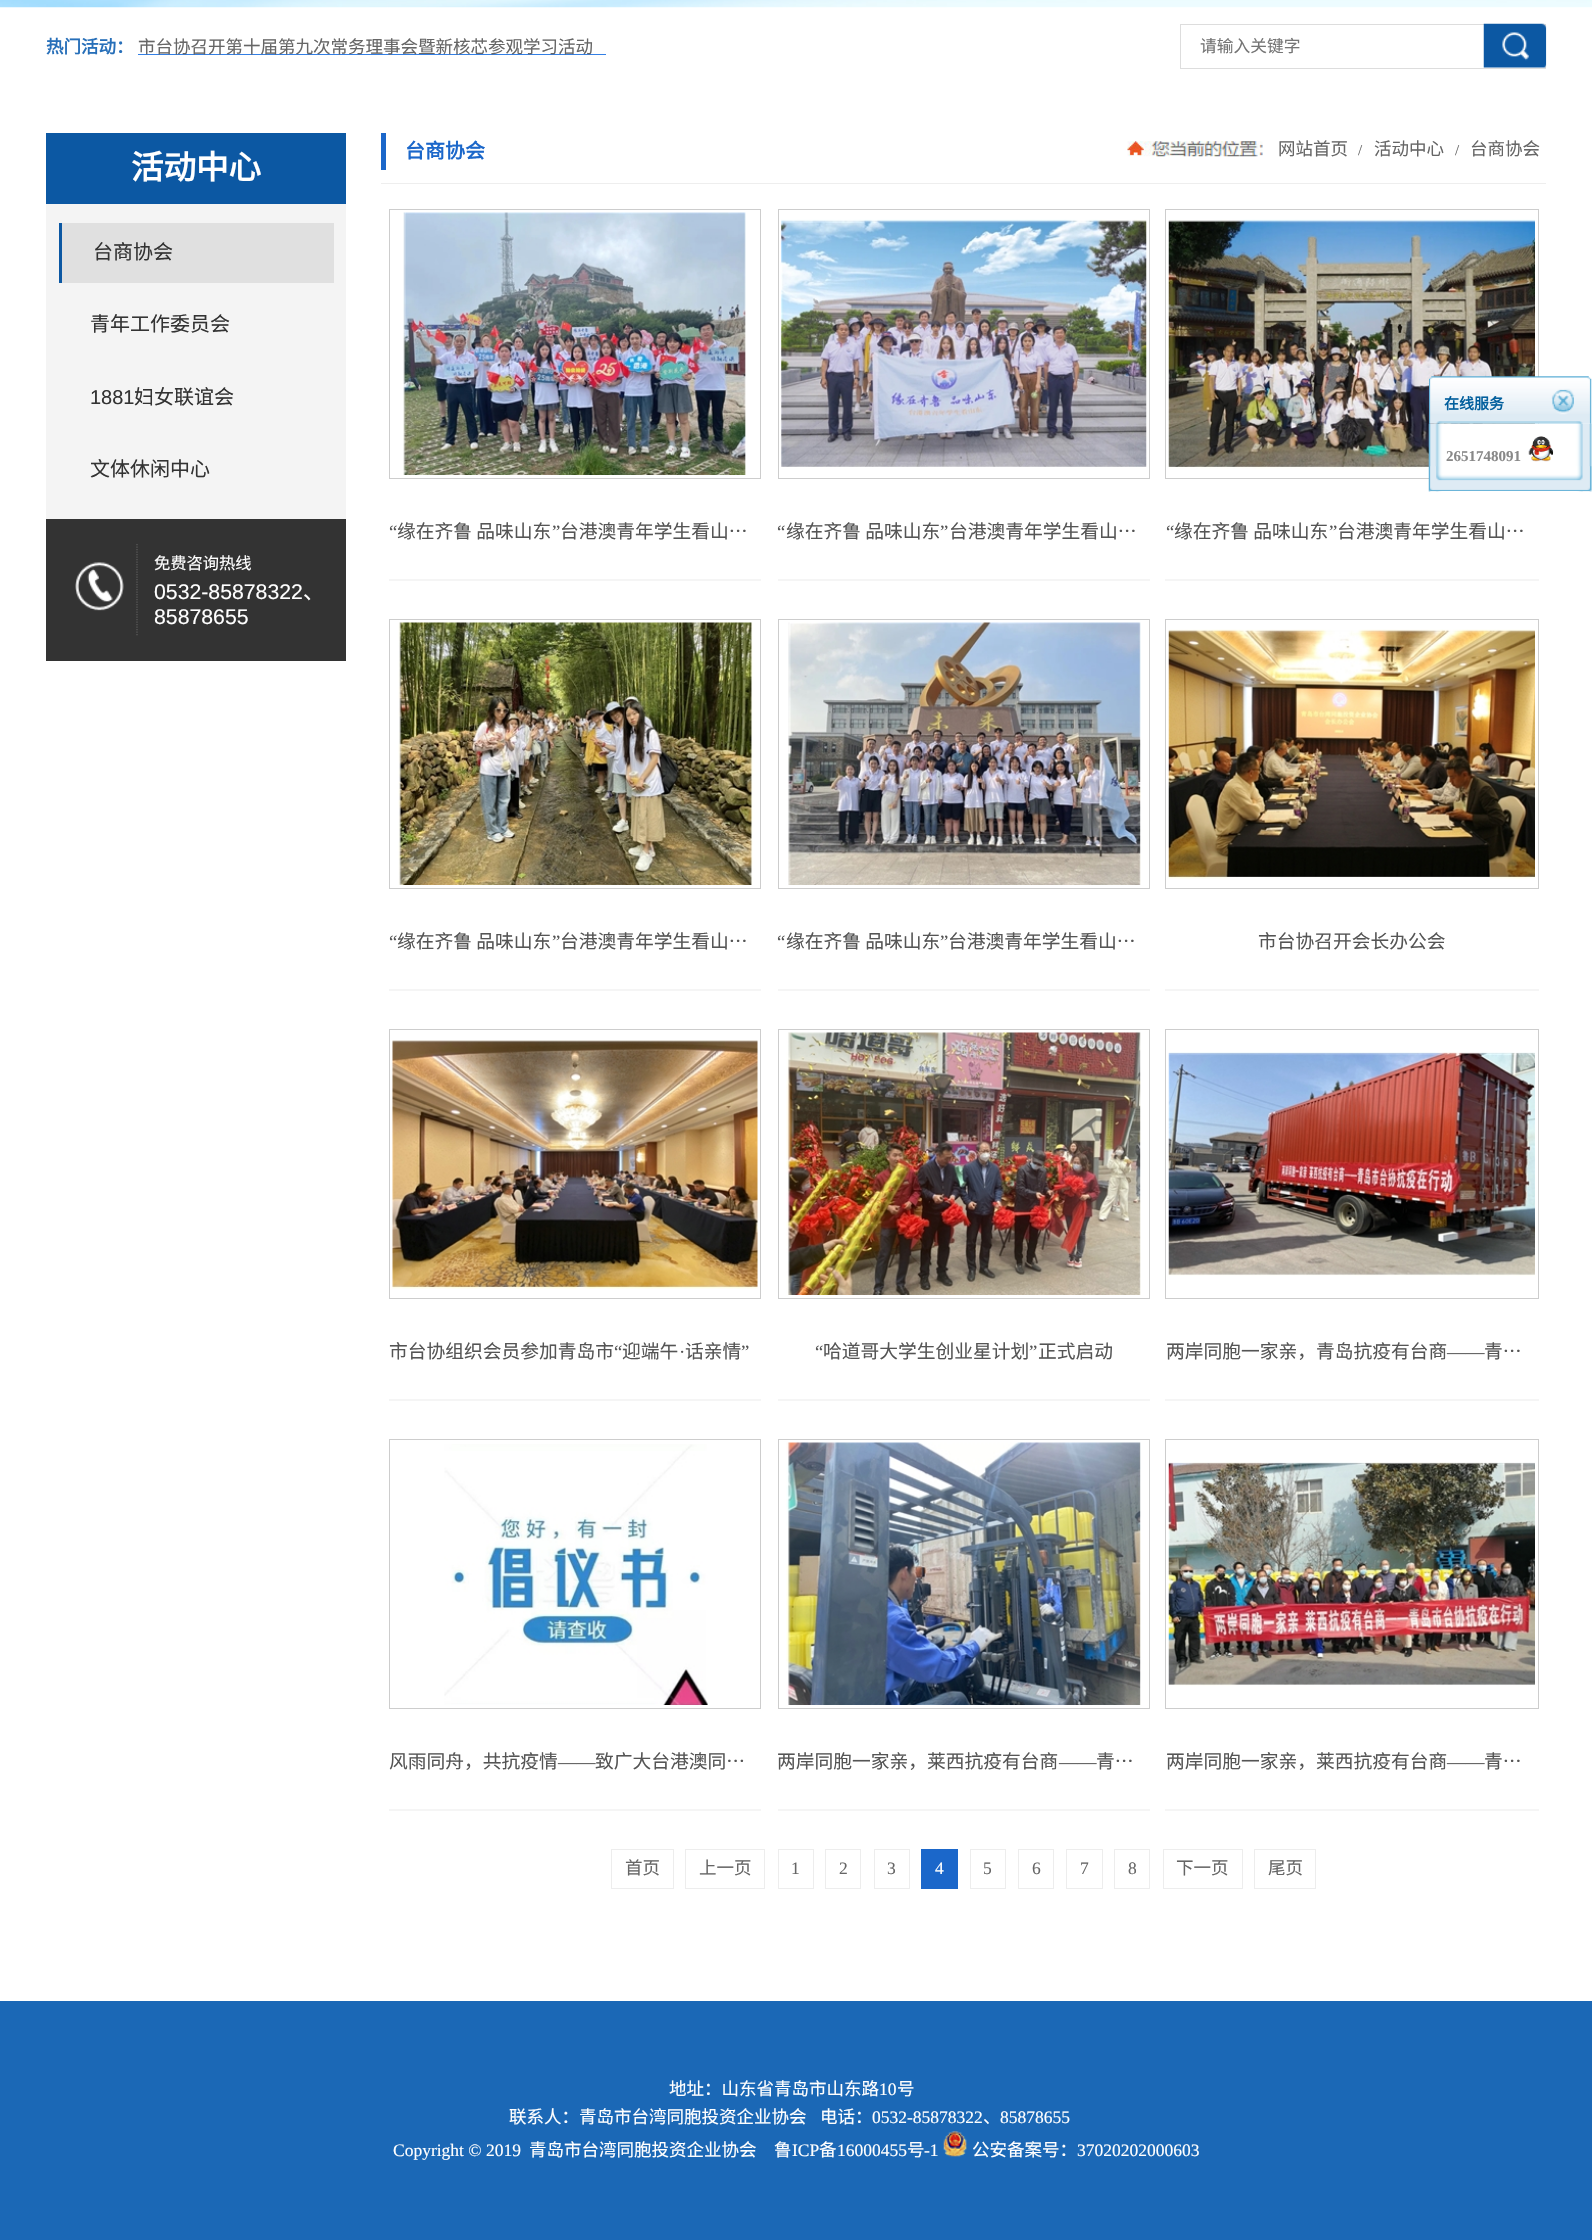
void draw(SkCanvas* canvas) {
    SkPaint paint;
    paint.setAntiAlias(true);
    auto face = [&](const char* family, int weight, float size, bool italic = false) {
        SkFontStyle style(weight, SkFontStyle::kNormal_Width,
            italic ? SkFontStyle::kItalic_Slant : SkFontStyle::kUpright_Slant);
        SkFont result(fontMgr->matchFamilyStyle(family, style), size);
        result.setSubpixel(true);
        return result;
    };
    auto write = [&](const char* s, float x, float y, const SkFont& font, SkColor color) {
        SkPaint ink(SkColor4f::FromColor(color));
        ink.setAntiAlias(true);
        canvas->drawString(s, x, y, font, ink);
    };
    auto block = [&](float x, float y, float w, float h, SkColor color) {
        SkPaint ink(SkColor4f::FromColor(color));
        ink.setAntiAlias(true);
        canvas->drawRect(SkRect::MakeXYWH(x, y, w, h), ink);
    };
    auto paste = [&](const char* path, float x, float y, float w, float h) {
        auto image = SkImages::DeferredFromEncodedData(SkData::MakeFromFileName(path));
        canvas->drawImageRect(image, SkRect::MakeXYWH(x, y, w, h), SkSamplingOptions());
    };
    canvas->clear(SK_ColorWHITE);
    paste("pic1.png", 0, 0, 1592, 8);
    auto kFont1 = face("Noto Sans CJK SC", 700, 17.5f);
    write("热门活动：", 46, 53, kFont1, SkColorSetRGB(39, 111, 185));
    block(138, 54, 468, 1, SkColorSetRGB(51, 127, 229));
    auto kFont2 = face("Noto Sans CJK SC", 400, 17.5f);
    write("市台协召开第十届第九次常务理事会暨新核芯参观学习活动", 138, 53, kFont2, SkColorSetRGB(102, 102, 102));
    paint.setStyle(SkPaint::kStroke_Style);
    paint.setStrokeWidth(1);
    paint.setColor(SkColorSetRGB(221, 221, 221));
    canvas->drawRect(SkRect::MakeXYWH(1180.5f, 24.5f, 365, 44), paint);
    auto kFont3 = face("Noto Sans CJK SC", 400, 16.75f);
    write("请输入关键字", 1200, 52, kFont3, SkColorSetRGB(117, 117, 117));
    paste("pic2.png", 1483, 23, 64, 45);
    block(46, 133, 300, 71, SkColorSetRGB(12, 88, 163));
    auto kFont4 = face("Noto Sans CJK SC", 700, 32.5f);
    write("活动中心", 131, 179, kFont4, SK_ColorWHITE);
    block(46, 204, 300, 315, SkColorSetRGB(244, 244, 244));
    block(62, 223, 272, 60, SkColorSetRGB(224, 224, 224));
    block(59, 223, 3, 60, SkColorSetRGB(12, 88, 163));
    auto kFont5 = face("Noto Sans CJK SC", 400, 20);
    write("台商协会", 93, 259, kFont5, SkColorSetRGB(51, 51, 51));
    write("青年工作委员会", 90, 331, kFont5, SkColorSetRGB(51, 51, 51));
    auto kFont6 = face("Liberation Sans", 400, 20);
    write("1881", 90, 404, kFont6, SkColorSetRGB(51, 51, 51));
    write("妇女联谊会", 134, 404, kFont5, SkColorSetRGB(51, 51, 51));
    write("文体休闲中心", 90, 476, kFont5, SkColorSetRGB(51, 51, 51));
    block(46, 519, 300, 142, SkColorSetRGB(51, 51, 51));
    paste("pic3.png", 75, 562, 49, 49);
    paint.setStrokeWidth(1.2f);
    paint.setColor(SkColorSetRGB(92, 92, 92));
    paint.setPathEffect(SkDashPathEffect::Make({{1.25f, 1.25f}}, 0));
    canvas->drawPath(SkPathBuilder().moveTo(137, 544).lineTo(137, 636).detach(), paint);
    paint.setPathEffect(nullptr);
    auto kFont7 = face("Noto Sans CJK SC", 400, 16.25f);
    write("免费咨询热线", 154, 569, kFont7, SK_ColorWHITE);
    auto kFont8 = face("Liberation Sans", 400, 21.25f);
    write("0532-85878322", 154, 599, kFont8, SK_ColorWHITE);
    auto kFont9 = face("Noto Sans CJK SC", 400, 21.25f);
    write("、", 303, 599, kFont9, SK_ColorWHITE);
    write("85878655", 154, 624, kFont8, SK_ColorWHITE);
    block(381, 183, 1165, 1, SkColorSetRGB(238, 238, 238));
    block(381, 133, 5, 37, SkColorSetRGB(27, 103, 202));
    auto kFont10 = face("Noto Sans CJK SC", 700, 20);
    write("台商协会", 405, 158, kFont10, SkColorSetRGB(27, 103, 202));
    paste("pic4.png", 1127, 141, 136, 16);
    write("网站首页", 1278, 155, kFont2, SkColorSetRGB(102, 102, 102));
    auto kFont11 = face("Liberation Serif", 400, 15);
    write("/", 1358, 155, kFont11, SkColorSetRGB(102, 102, 102));
    write("活动中心", 1374, 155, kFont2, SkColorSetRGB(102, 102, 102));
    write("/", 1455, 155, kFont11, SkColorSetRGB(102, 102, 102));
    write("台商协会", 1470, 155, kFont2, SkColorSetRGB(102, 102, 102));
    paint.setStrokeWidth(1);
    paint.setColor(SkColorSetRGB(205, 205, 205));
    canvas->drawRect(SkRect::MakeXYWH(389.5f, 209.5f, 371, 269), paint);
    paste("pic5.png", 403, 212, 343, 263);
    block(389, 579, 372, 2, SkColorSetRGB(245, 245, 245));
    auto kFont12 = face("Liberation Serif", 400, 18.75f);
    write("“", 389, 538, kFont12, SkColorSetRGB(85, 85, 85));
    auto kFont13 = face("Noto Sans CJK SC", 400, 18.75f);
    write("缘在齐鲁 品味山东", 397, 538, kFont13, SkColorSetRGB(85, 85, 85));
    write("”", 552, 538, kFont12, SkColorSetRGB(85, 85, 85));
    write("台港澳青年学生看山…", 560, 538, kFont13, SkColorSetRGB(85, 85, 85));
    canvas->drawRect(SkRect::MakeXYWH(778.5f, 209.5f, 371, 269), paint);
    paste("pic6.png", 781, 219, 366, 248);
    block(778, 579, 372, 2, SkColorSetRGB(245, 245, 245));
    write("“", 777, 538, kFont12, SkColorSetRGB(85, 85, 85));
    write("缘在齐鲁 品味山东", 786, 538, kFont13, SkColorSetRGB(85, 85, 85));
    write("”", 940, 538, kFont12, SkColorSetRGB(85, 85, 85));
    write("台港澳青年学生看山…", 949, 538, kFont13, SkColorSetRGB(85, 85, 85));
    canvas->drawRect(SkRect::MakeXYWH(1165.5f, 209.5f, 373, 269), paint);
    paste("pic7.png", 1168, 219, 367, 250);
    block(1165, 579, 374, 2, SkColorSetRGB(245, 245, 245));
    write("“", 1166, 538, kFont12, SkColorSetRGB(85, 85, 85));
    write("缘在齐鲁 品味山东", 1174, 538, kFont13, SkColorSetRGB(85, 85, 85));
    write("”", 1329, 538, kFont12, SkColorSetRGB(85, 85, 85));
    write("台港澳青年学生看山…", 1337, 538, kFont13, SkColorSetRGB(85, 85, 85));
    canvas->drawRect(SkRect::MakeXYWH(389.5f, 619.5f, 371, 269), paint);
    paste("pic8.png", 398, 622, 355, 263);
    block(389, 989, 372, 2, SkColorSetRGB(245, 245, 245));
    write("“", 389, 948, kFont12, SkColorSetRGB(85, 85, 85));
    write("缘在齐鲁 品味山东", 397, 948, kFont13, SkColorSetRGB(85, 85, 85));
    write("”", 552, 948, kFont12, SkColorSetRGB(85, 85, 85));
    write("台港澳青年学生看山…", 560, 948, kFont13, SkColorSetRGB(85, 85, 85));
    canvas->drawRect(SkRect::MakeXYWH(778.5f, 619.5f, 371, 269), paint);
    paste("pic9.png", 788, 622, 353, 263);
    block(778, 989, 372, 2, SkColorSetRGB(245, 245, 245));
    write("“", 777, 948, kFont12, SkColorSetRGB(85, 85, 85));
    write("缘在齐鲁 品味山东", 786, 948, kFont13, SkColorSetRGB(85, 85, 85));
    write("”", 940, 948, kFont12, SkColorSetRGB(85, 85, 85));
    write("台港澳青年学生看山…", 948, 948, kFont13, SkColorSetRGB(85, 85, 85));
    canvas->drawRect(SkRect::MakeXYWH(1165.5f, 619.5f, 373, 269), paint);
    paste("pic10.png", 1168, 629, 367, 250);
    block(1165, 989, 374, 2, SkColorSetRGB(245, 245, 245));
    write("市台协召开会长办公会", 1258, 948, kFont13, SkColorSetRGB(85, 85, 85));
    canvas->drawRect(SkRect::MakeXYWH(389.5f, 1029.5f, 371, 269), paint);
    paste("pic11.png", 392, 1040, 366, 249);
    block(389, 1399, 372, 2, SkColorSetRGB(245, 245, 245));
    write("市台协组织会员参加青岛市", 389, 1358, kFont13, SkColorSetRGB(85, 85, 85));
    write("“", 614, 1358, kFont12, SkColorSetRGB(85, 85, 85));
    write("迎端午", 622, 1358, kFont13, SkColorSetRGB(85, 85, 85));
    write("话亲情", 685, 1358, kFont13, SkColorSetRGB(85, 85, 85));
    write("”", 741, 1358, kFont12, SkColorSetRGB(85, 85, 85));
    write("·", 679, 1358, kFont12, SkColorSetRGB(85, 85, 85));
    canvas->drawRect(SkRect::MakeXYWH(778.5f, 1029.5f, 371, 269), paint);
    paste("pic12.png", 786, 1032, 355, 263);
    block(778, 1399, 372, 2, SkColorSetRGB(245, 245, 245));
    write("“", 815, 1358, kFont12, SkColorSetRGB(85, 85, 85));
    write("哈道哥大学生创业星计划", 823, 1358, kFont13, SkColorSetRGB(85, 85, 85));
    write("”", 1029, 1358, kFont12, SkColorSetRGB(85, 85, 85));
    write("正式启动", 1038, 1358, kFont13, SkColorSetRGB(85, 85, 85));
    canvas->drawRect(SkRect::MakeXYWH(1165.5f, 1029.5f, 373, 269), paint);
    paste("pic13.png", 1168, 1052, 367, 224);
    block(1165, 1399, 374, 2, SkColorSetRGB(245, 245, 245));
    write("两岸同胞一家亲，青岛抗疫有台商", 1166, 1358, kFont13, SkColorSetRGB(85, 85, 85));
    write("——", 1447, 1358, kFont12, SkColorSetRGB(85, 85, 85));
    write("青…", 1484, 1358, kFont13, SkColorSetRGB(85, 85, 85));
    canvas->drawRect(SkRect::MakeXYWH(389.5f, 1439.5f, 371, 269), paint);
    paste("pic14.png", 444, 1444, 264, 261);
    block(389, 1809, 372, 2, SkColorSetRGB(245, 245, 245));
    write("风雨同舟，共抗疫情", 389, 1768, kFont13, SkColorSetRGB(85, 85, 85));
    write("——", 558, 1768, kFont12, SkColorSetRGB(85, 85, 85));
    write("致广大台港澳同…", 595, 1768, kFont13, SkColorSetRGB(85, 85, 85));
    canvas->drawRect(SkRect::MakeXYWH(778.5f, 1439.5f, 371, 269), paint);
    paste("pic15.png", 786, 1442, 355, 263);
    block(778, 1809, 372, 2, SkColorSetRGB(245, 245, 245));
    write("两岸同胞一家亲，莱西抗疫有台商", 777, 1768, kFont13, SkColorSetRGB(85, 85, 85));
    write("——", 1059, 1768, kFont12, SkColorSetRGB(85, 85, 85));
    write("青…", 1096, 1768, kFont13, SkColorSetRGB(85, 85, 85));
    canvas->drawRect(SkRect::MakeXYWH(1165.5f, 1439.5f, 373, 269), paint);
    paste("pic16.png", 1168, 1462, 367, 224);
    block(1165, 1809, 374, 2, SkColorSetRGB(245, 245, 245));
    write("两岸同胞一家亲，莱西抗疫有台商", 1166, 1768, kFont13, SkColorSetRGB(85, 85, 85));
    write("——", 1447, 1768, kFont12, SkColorSetRGB(85, 85, 85));
    write("青…", 1484, 1768, kFont13, SkColorSetRGB(85, 85, 85));
    paint.setColor(SkColorSetRGB(237, 237, 237));
    canvas->drawRect(SkRect::MakeXYWH(611.5f, 1849.5f, 62, 39), paint);
    write("首页", 625, 1874, kFont2, SkColorSetRGB(102, 102, 102));
    canvas->drawRect(SkRect::MakeXYWH(685.5f, 1849.5f, 79, 39), paint);
    write("上一页", 699, 1874, kFont2, SkColorSetRGB(102, 102, 102));
    canvas->drawRect(SkRect::MakeXYWH(778.5f, 1849.5f, 35, 39), paint);
    auto kFont14 = face("Liberation Serif", 400, 17.5f);
    write("1", 791, 1874, kFont14, SkColorSetRGB(102, 102, 102));
    canvas->drawRect(SkRect::MakeXYWH(825.5f, 1849.5f, 35, 39), paint);
    write("2", 839, 1874, kFont14, SkColorSetRGB(102, 102, 102));
    canvas->drawRect(SkRect::MakeXYWH(874.5f, 1849.5f, 35, 39), paint);
    write("3", 887, 1874, kFont14, SkColorSetRGB(102, 102, 102));
    block(921, 1849, 37, 40, SkColorSetRGB(27, 103, 202));
    write("4", 935, 1874, kFont14, SK_ColorWHITE);
    canvas->drawRect(SkRect::MakeXYWH(970.5f, 1849.5f, 35, 39), paint);
    write("5", 983, 1874, kFont14, SkColorSetRGB(102, 102, 102));
    canvas->drawRect(SkRect::MakeXYWH(1018.5f, 1849.5f, 35, 39), paint);
    write("6", 1032, 1874, kFont14, SkColorSetRGB(102, 102, 102));
    canvas->drawRect(SkRect::MakeXYWH(1066.5f, 1849.5f, 36, 39), paint);
    write("7", 1080, 1874, kFont14, SkColorSetRGB(102, 102, 102));
    canvas->drawRect(SkRect::MakeXYWH(1114.5f, 1849.5f, 35, 39), paint);
    write("8", 1128, 1874, kFont14, SkColorSetRGB(102, 102, 102));
    canvas->drawRect(SkRect::MakeXYWH(1163.5f, 1849.5f, 79, 39), paint);
    write("下一页", 1176, 1874, kFont2, SkColorSetRGB(102, 102, 102));
    canvas->drawRect(SkRect::MakeXYWH(1254.5f, 1849.5f, 61, 39), paint);
    write("尾页", 1268, 1874, kFont2, SkColorSetRGB(102, 102, 102));
    paste("pic18.png", 1428, 423, 164, 69);
    paste("pic17.png", 1429, 376, 163, 48);
    auto kFont15 = face("Noto Sans CJK SC", 700, 15);
    write("在线服务", 1444, 409, kFont15, SkColorSetRGB(2, 95, 157));
    auto kFont16 = face("Liberation Serif", 700, 15);
    write("2651748091", 1446, 461, kFont16, SkColorSetRGB(136, 136, 136));
    paste("pic19.png", 1528, 436, 26, 26);
    paste("pic20.png", 1429, 466, 163, 25);
    block(0, 2001, 1592, 239, SkColorSetRGB(27, 104, 182));
    write("地址：山东省青岛市山东路", 669, 2095, kFont2, SK_ColorWHITE);
    write("10", 879, 2095, kFont14, SK_ColorWHITE);
    write("号", 897, 2095, kFont2, SK_ColorWHITE);
    write("联系人：青岛市台湾同胞投资企业协会", 509, 2123, kFont2, SK_ColorWHITE);
    write("电话：", 820, 2123, kFont2, SK_ColorWHITE);
    write("0532-85878322", 872, 2123, kFont14, SK_ColorWHITE);
    write("、", 983, 2123, kFont2, SK_ColorWHITE);
    write("85878655", 1000, 2123, kFont14, SK_ColorWHITE);
    write("Copyright © 2019", 393, 2156, kFont14, SK_ColorWHITE);
    write("青岛市台湾同胞投资企业协会", 529, 2156, kFont2, SK_ColorWHITE);
    write("鲁", 774, 2156, kFont2, SK_ColorWHITE);
    write("ICP", 792, 2156, kFont14, SK_ColorWHITE);
    write("备", 819, 2156, kFont2, SK_ColorWHITE);
    write("16000455", 837, 2156, kFont14, SK_ColorWHITE);
    write("号", 907, 2156, kFont2, SK_ColorWHITE);
    write("-1", 924, 2156, kFont14, SK_ColorWHITE);
    paste("pic21.png", 943, 2131, 24, 26);
    write("公安备案号：", 972, 2156, kFont2, SK_ColorWHITE);
    write("37020202000603", 1077, 2156, kFont14, SK_ColorWHITE);
}
